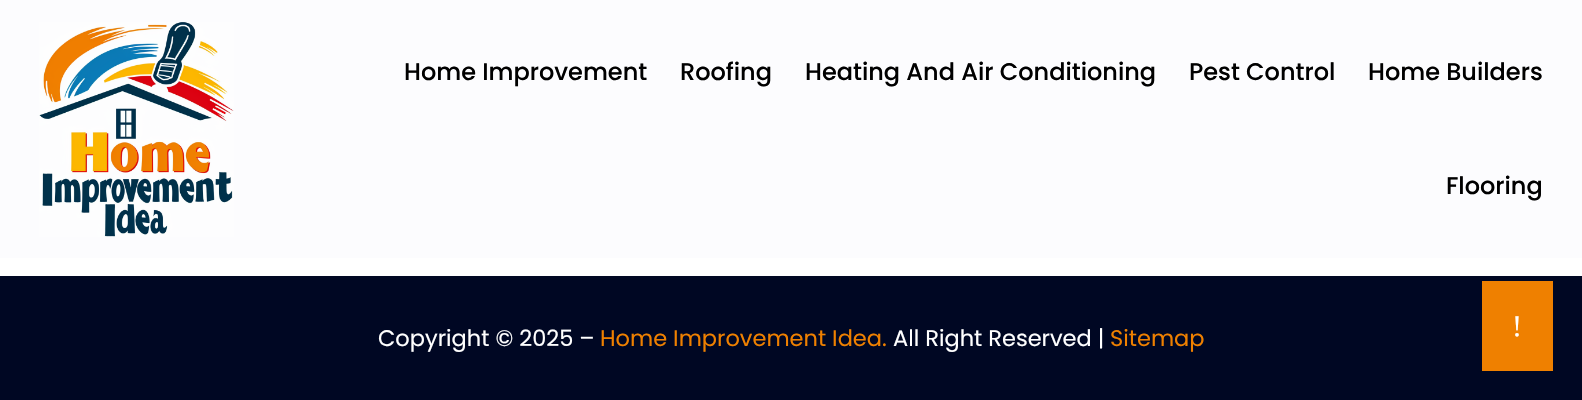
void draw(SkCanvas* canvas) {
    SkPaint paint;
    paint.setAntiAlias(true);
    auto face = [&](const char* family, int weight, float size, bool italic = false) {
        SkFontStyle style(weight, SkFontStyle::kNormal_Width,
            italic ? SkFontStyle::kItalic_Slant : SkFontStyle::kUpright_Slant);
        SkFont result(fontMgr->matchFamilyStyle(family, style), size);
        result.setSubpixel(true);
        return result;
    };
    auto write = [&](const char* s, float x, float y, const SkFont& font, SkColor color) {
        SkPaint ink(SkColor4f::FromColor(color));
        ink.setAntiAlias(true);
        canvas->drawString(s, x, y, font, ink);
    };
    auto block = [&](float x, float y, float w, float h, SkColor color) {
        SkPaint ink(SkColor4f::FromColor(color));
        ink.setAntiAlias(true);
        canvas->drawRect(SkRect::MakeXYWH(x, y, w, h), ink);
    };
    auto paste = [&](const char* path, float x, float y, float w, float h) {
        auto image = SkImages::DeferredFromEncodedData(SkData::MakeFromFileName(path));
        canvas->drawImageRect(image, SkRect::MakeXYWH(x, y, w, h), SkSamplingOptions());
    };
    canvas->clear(SK_ColorWHITE);
    block(0, 0, 1582, 258, SkColorSetRGB(252, 252, 254));
    paste("pic1.png", 39, 22, 195, 215);
    auto kFont1 = face("Poppins", 500, 24);
    write("Home Improvement", 404, 80, kFont1, SK_ColorBLACK);
    write("Roofing", 680, 80, kFont1, SK_ColorBLACK);
    write("Heating And Air Conditioning", 805, 80, kFont1, SK_ColorBLACK);
    write("Pest Control", 1189, 80, kFont1, SK_ColorBLACK);
    write("Home Builders", 1368, 80, kFont1, SK_ColorBLACK);
    write("Flooring", 1446, 194, kFont1, SK_ColorBLACK);
    block(0, 276, 1582, 124, SkColorSetRGB(0, 7, 35));
    auto kFont2 = face("Poppins", 400, 22.5f);
    write("Copyright © 2025 –", 378, 346, kFont2, SK_ColorWHITE);
    write("Home Improvement Idea.", 600, 346, kFont2, SkColorSetRGB(239, 128, 0));
    write("All Right Reserved |", 893, 346, kFont2, SK_ColorWHITE);
    write("Sitemap", 1110, 346, kFont2, SkColorSetRGB(239, 128, 0));
    block(1482, 281, 71, 90, SkColorSetRGB(239, 128, 0));
    auto kFont3 = face("Liberation Serif", 400, 30);
    write("!", 1512, 336, kFont3, SK_ColorWHITE);
}
